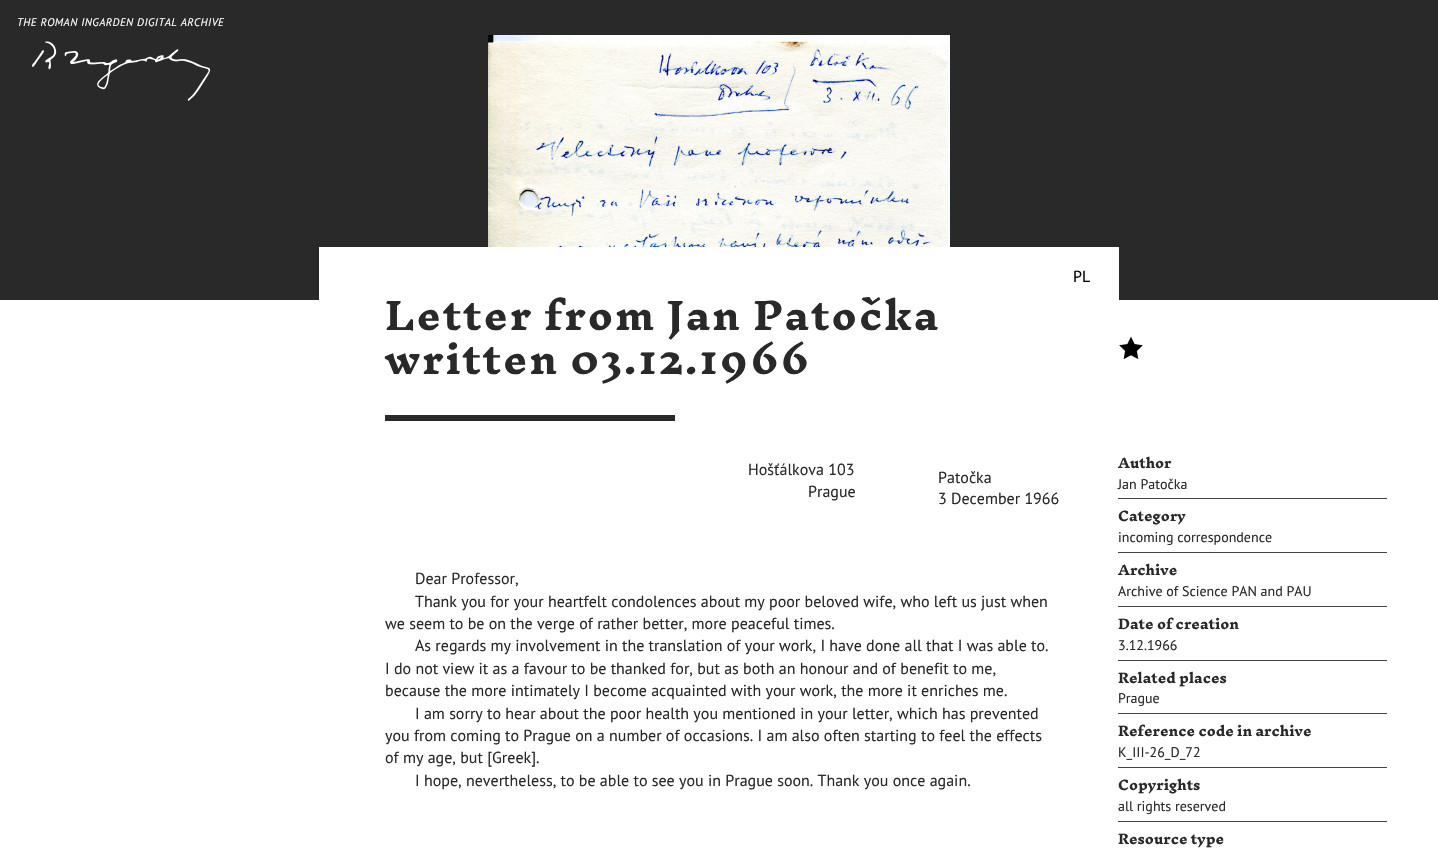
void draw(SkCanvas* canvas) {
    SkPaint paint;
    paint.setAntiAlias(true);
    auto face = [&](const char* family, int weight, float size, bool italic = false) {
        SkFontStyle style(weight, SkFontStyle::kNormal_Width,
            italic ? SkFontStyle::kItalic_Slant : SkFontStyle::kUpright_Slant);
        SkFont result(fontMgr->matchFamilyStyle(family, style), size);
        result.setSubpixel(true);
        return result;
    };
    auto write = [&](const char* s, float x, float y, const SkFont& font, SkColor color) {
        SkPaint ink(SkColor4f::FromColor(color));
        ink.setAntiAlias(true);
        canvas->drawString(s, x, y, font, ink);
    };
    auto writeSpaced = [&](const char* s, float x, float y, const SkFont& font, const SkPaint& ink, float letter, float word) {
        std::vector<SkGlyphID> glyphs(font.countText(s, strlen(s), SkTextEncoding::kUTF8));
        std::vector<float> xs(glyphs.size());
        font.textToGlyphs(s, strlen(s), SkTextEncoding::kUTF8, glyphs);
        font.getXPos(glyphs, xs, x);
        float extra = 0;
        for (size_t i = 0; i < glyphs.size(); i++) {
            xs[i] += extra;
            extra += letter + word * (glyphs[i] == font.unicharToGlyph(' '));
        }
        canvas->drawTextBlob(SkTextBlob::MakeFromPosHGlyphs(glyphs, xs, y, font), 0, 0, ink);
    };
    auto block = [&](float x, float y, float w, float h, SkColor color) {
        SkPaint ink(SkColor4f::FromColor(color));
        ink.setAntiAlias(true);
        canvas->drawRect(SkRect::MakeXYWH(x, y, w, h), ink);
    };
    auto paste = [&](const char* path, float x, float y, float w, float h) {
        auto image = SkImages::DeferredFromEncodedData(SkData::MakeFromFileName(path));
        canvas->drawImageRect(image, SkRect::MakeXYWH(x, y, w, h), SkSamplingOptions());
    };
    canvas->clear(SK_ColorWHITE);
    block(0, 0, 1438, 300, SkColorSetRGB(41, 41, 41));
    auto kFont1 = face("PT Sans", 400, 11, true);
    paint.setColor(SK_ColorWHITE);
    writeSpaced("THE ROMAN INGARDEN DIGITAL ARCHIVE", 17, 26, kFont1, paint, 0.5f, 0);
    paste("pic1.png", 32, 41, 179, 60);
    paste("pic2.png", 488, 35, 462, 212);
    block(319, 247, 800, 53, SK_ColorWHITE);
    auto kFont2 = face("PT Sans", 400, 16);
    write("PL", 1073, 282, kFont2, SK_ColorBLACK);
    auto kFont3 = face("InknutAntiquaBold", 700, 37);
    paint.setColor(SkColorSetRGB(41, 41, 41));
    writeSpaced("Letter from Jan Patočka", 385, 330, kFont3, paint, 2, 0);
    writeSpaced("written 03.12.1966", 385, 374, kFont3, paint, 2, 0);
    paste("pic3.png", 1119, 336, 24, 23);
    block(385, 415, 290, 6, SkColorSetRGB(41, 41, 41));
    write("Hošťálkova 103", 748, 475, kFont2, SkColorSetRGB(41, 41, 41));
    write("Prague", 808, 497, kFont2, SkColorSetRGB(41, 41, 41));
    write("Patočka", 938, 483, kFont2, SkColorSetRGB(41, 41, 41));
    write("3 December 1966", 938, 504, kFont2, SkColorSetRGB(41, 41, 41));
    block(1118, 498, 269, 1, SkColorSetRGB(68, 68, 68));
    auto kFont4 = face("InknutAntiquaBold", 700, 13);
    write("Author", 1118, 468, kFont4, SkColorSetRGB(41, 41, 41));
    auto kFont5 = face("PT Sans", 400, 14);
    write("Jan Patočka", 1118, 489, kFont5, SkColorSetRGB(41, 41, 41));
    block(1118, 552, 269, 1, SkColorSetRGB(68, 68, 68));
    write("Category", 1118, 521, kFont4, SkColorSetRGB(41, 41, 41));
    write("incoming correspondence", 1118, 542, kFont5, SkColorSetRGB(41, 41, 41));
    block(1118, 606, 269, 1, SkColorSetRGB(68, 68, 68));
    write("Archive", 1118, 575, kFont4, SkColorSetRGB(41, 41, 41));
    write("Archive of Science PAN and PAU", 1118, 596, kFont5, SkColorSetRGB(41, 41, 41));
    block(1118, 660, 269, 1, SkColorSetRGB(68, 68, 68));
    write("Date of creation", 1118, 629, kFont4, SkColorSetRGB(41, 41, 41));
    write("3.12.1966", 1118, 650, kFont5, SkColorSetRGB(41, 41, 41));
    block(1118, 713, 269, 1, SkColorSetRGB(68, 68, 68));
    write("Related places", 1118, 683, kFont4, SkColorSetRGB(41, 41, 41));
    write("Prague", 1118, 703, kFont5, SkColorSetRGB(41, 41, 41));
    block(1118, 767, 269, 1, SkColorSetRGB(68, 68, 68));
    write("Reference code in archive", 1118, 736, kFont4, SkColorSetRGB(41, 41, 41));
    write("K_III-26_D_72", 1118, 757, kFont5, SkColorSetRGB(41, 41, 41));
    block(1118, 821, 269, 1, SkColorSetRGB(68, 68, 68));
    write("Copyrights", 1118, 790, kFont4, SkColorSetRGB(41, 41, 41));
    write("all rights reserved", 1118, 811, kFont5, SkColorSetRGB(41, 41, 41));
    write("Resource type", 1118, 844, kFont4, SkColorSetRGB(41, 41, 41));
    write("Dear Professor,", 415, 584, kFont2, SkColorSetRGB(41, 41, 41));
    write("Thank you for your heartfelt condolences about my poor beloved wife, who left us just when", 415, 607, kFont2, SkColorSetRGB(41, 41, 41));
    write("we seem to be on the verge of rather better, more peaceful times.", 385, 629, kFont2, SkColorSetRGB(41, 41, 41));
    write("As regards my involvement in the translation of your work, I have done all that I was able to.", 415, 651, kFont2, SkColorSetRGB(41, 41, 41));
    write("I do not view it as a favour to be thanked for, but as both an honour and of benefit to me,", 385, 674, kFont2, SkColorSetRGB(41, 41, 41));
    write("because the more intimately I become acquainted with your work, the more it enriches me.", 385, 696, kFont2, SkColorSetRGB(41, 41, 41));
    write("I am sorry to hear about the poor health you mentioned in your letter, which has prevented", 415, 719, kFont2, SkColorSetRGB(41, 41, 41));
    write("you from coming to Prague on a number of occasions. I am also often starting to feel the effects", 385, 741, kFont2, SkColorSetRGB(41, 41, 41));
    write("of my age, but [Greek].", 385, 763, kFont2, SkColorSetRGB(41, 41, 41));
    write("I hope, nevertheless, to be able to see you in Prague soon. Thank you once again.", 415, 786, kFont2, SkColorSetRGB(41, 41, 41));
}
